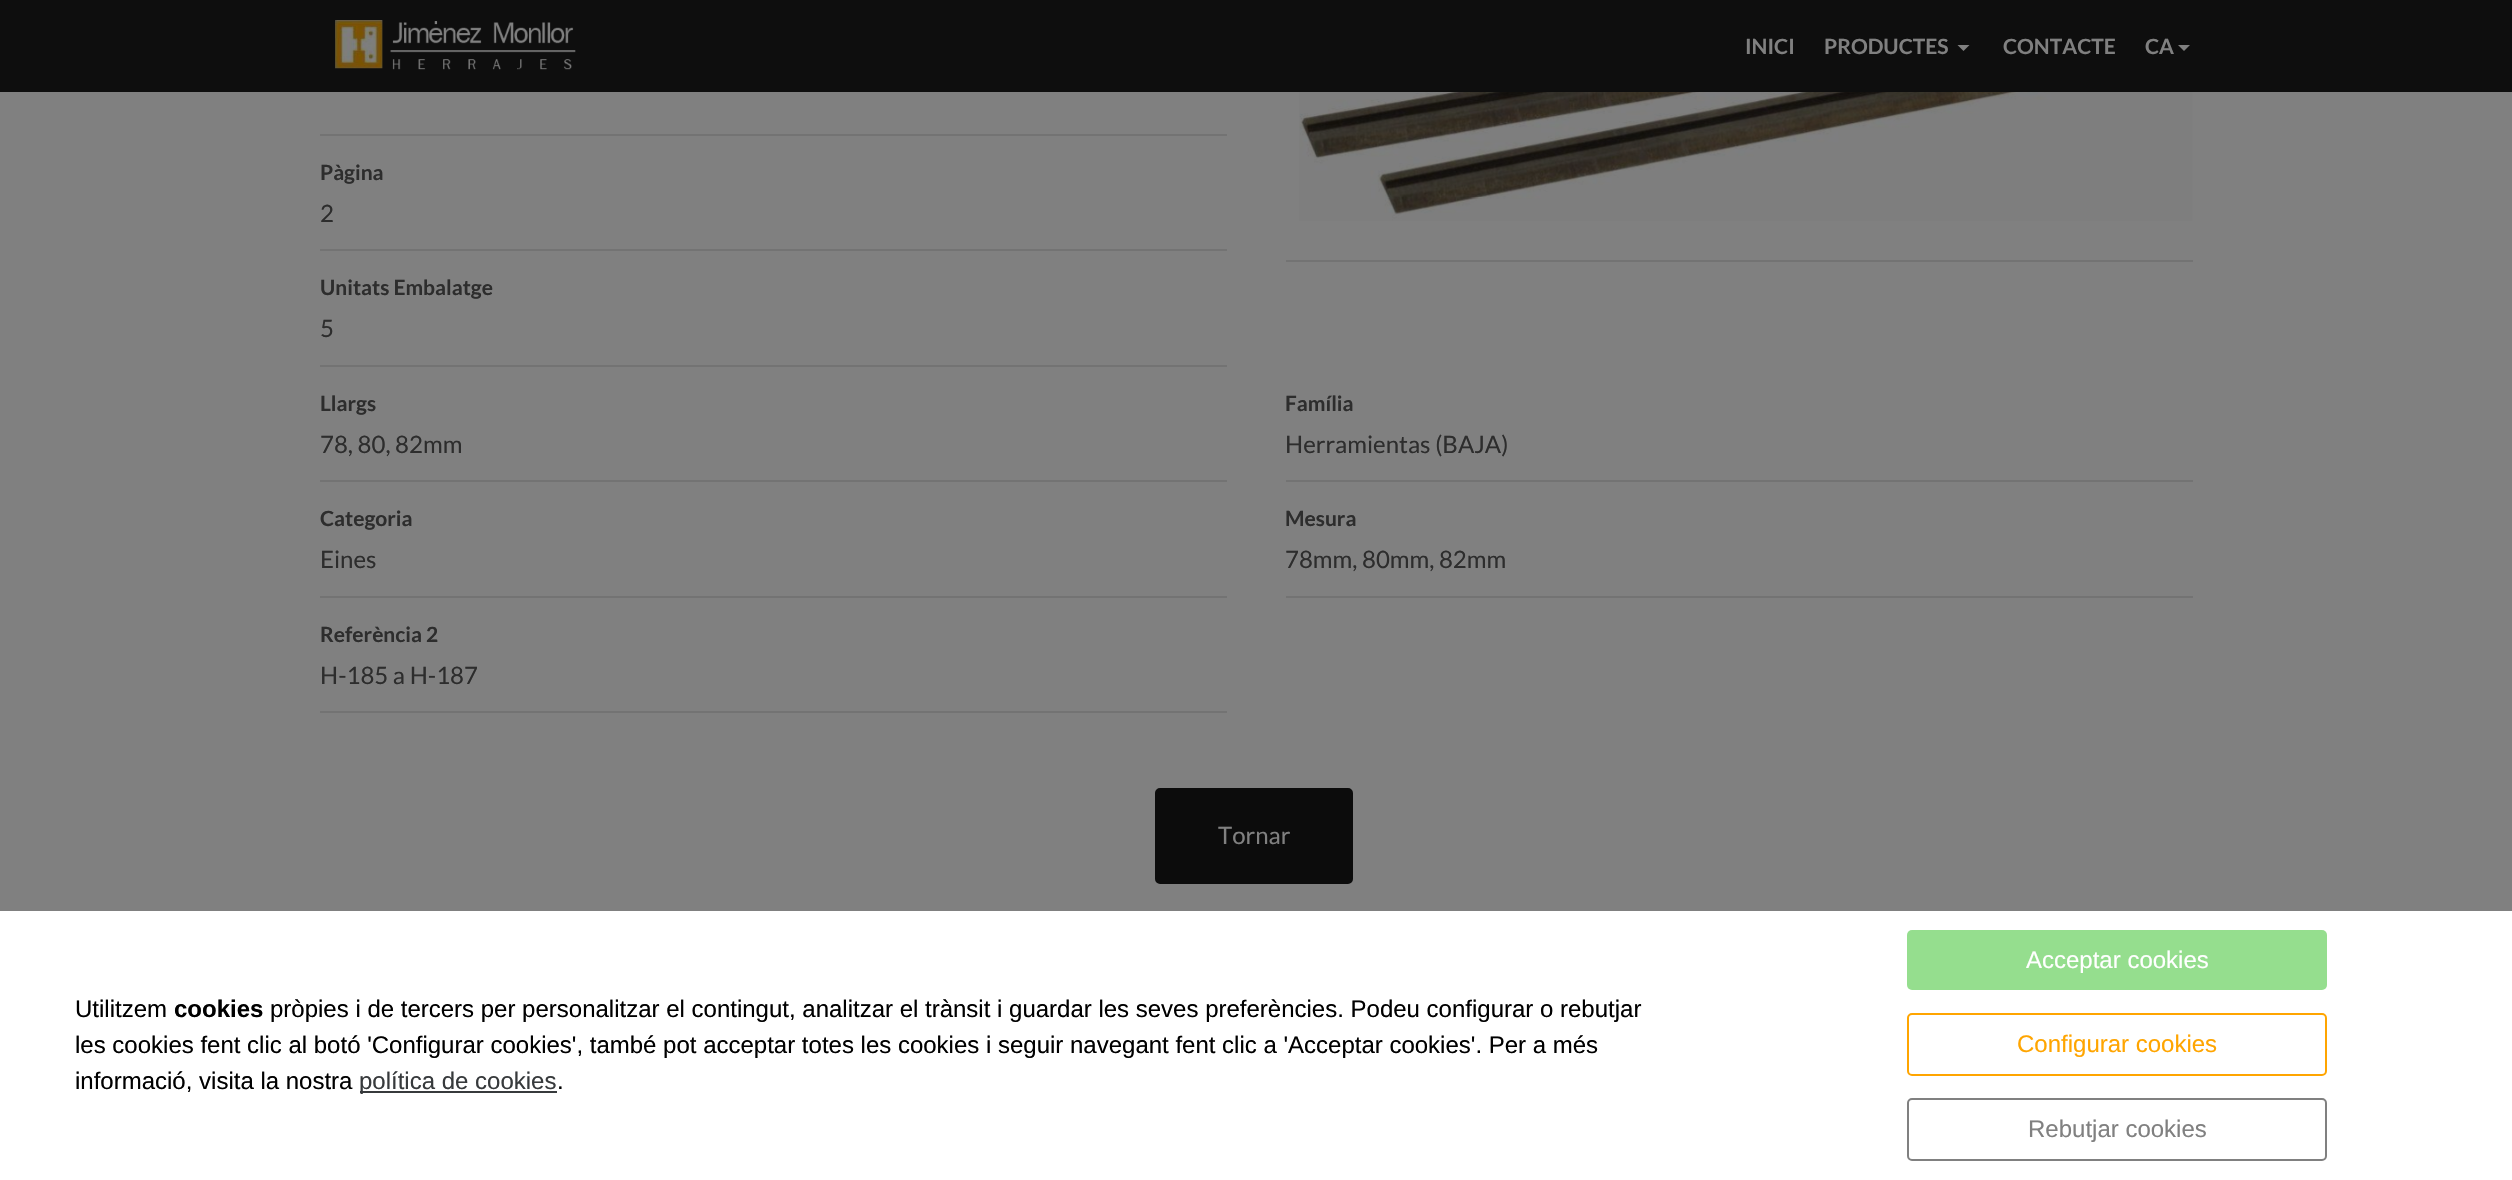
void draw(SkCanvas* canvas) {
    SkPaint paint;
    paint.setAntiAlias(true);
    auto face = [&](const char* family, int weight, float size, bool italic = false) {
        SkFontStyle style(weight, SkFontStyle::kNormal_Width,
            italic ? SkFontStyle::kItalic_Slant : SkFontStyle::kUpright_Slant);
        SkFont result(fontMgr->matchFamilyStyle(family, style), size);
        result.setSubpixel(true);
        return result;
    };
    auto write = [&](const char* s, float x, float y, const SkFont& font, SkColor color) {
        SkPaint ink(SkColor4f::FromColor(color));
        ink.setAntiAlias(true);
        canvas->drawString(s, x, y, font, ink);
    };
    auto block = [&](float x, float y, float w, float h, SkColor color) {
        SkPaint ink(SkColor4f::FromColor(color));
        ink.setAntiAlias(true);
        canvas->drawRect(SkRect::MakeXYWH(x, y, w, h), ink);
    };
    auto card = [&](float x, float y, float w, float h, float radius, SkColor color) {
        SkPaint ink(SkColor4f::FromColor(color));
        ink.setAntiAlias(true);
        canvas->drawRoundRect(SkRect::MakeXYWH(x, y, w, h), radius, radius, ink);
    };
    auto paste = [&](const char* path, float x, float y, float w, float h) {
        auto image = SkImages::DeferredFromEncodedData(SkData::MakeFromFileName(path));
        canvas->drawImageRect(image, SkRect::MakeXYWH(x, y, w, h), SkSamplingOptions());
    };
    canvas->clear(SkColorSetRGB(128, 128, 128));
    block(0, 0, 2512, 92, SkColorSetRGB(14, 14, 14));
    paste("pic1.png", 335, 20, 241, 50);
    auto kFont1 = face("Lato", 700, 21);
    write("INICI", 1745, 54, kFont1, SkColorSetRGB(128, 128, 128));
    write("PRODUCTES", 1824, 54, kFont1, SkColorSetRGB(128, 128, 128));
    paint.setColor(SkColorSetRGB(128, 128, 128));
    canvas->drawPath(SkPathBuilder().moveTo(1957.5f, 45).lineTo(1969.5f, 45).lineTo(1963.5f, 51).close().detach(), paint);
    write("CONTACTE", 2003, 54, kFont1, SkColorSetRGB(128, 128, 128));
    write("CA", 2145, 54, kFont1, SkColorSetRGB(128, 128, 128));
    canvas->drawPath(SkPathBuilder().moveTo(2178, 45).lineTo(2190, 45).lineTo(2184, 51).close().detach(), paint);
    block(320, 134, 907, 2, SkColorSetRGB(115, 115, 115));
    block(1286, 260, 907, 2, SkColorSetRGB(115, 115, 115));
    paste("pic2.png", 1299, 92, 894, 129);
    block(320, 249, 907, 2, SkColorSetRGB(115, 115, 115));
    write("Pàgina", 320, 180, kFont1, SkColorSetRGB(45, 45, 45));
    auto kFont2 = face("Lato", 400, 24);
    write("2", 320, 222, kFont2, SkColorSetRGB(45, 45, 45));
    block(320, 365, 907, 2, SkColorSetRGB(115, 115, 115));
    write("Unitats Embalatge", 320, 295, kFont1, SkColorSetRGB(45, 45, 45));
    write("5", 320, 337, kFont2, SkColorSetRGB(45, 45, 45));
    block(320, 480, 907, 2, SkColorSetRGB(115, 115, 115));
    write("Llargs", 320, 411, kFont1, SkColorSetRGB(45, 45, 45));
    write("78, 80, 82mm", 320, 453, kFont2, SkColorSetRGB(45, 45, 45));
    block(1286, 480, 907, 2, SkColorSetRGB(115, 115, 115));
    write("Família", 1285, 411, kFont1, SkColorSetRGB(45, 45, 45));
    write("Herramientas (BAJA)", 1285, 453, kFont2, SkColorSetRGB(45, 45, 45));
    block(320, 596, 907, 2, SkColorSetRGB(115, 115, 115));
    write("Categoria", 320, 526, kFont1, SkColorSetRGB(45, 45, 45));
    write("Eines", 320, 568, kFont2, SkColorSetRGB(45, 45, 45));
    block(1286, 596, 907, 2, SkColorSetRGB(115, 115, 115));
    write("Mesura", 1285, 526, kFont1, SkColorSetRGB(45, 45, 45));
    write("78mm, 80mm, 82mm", 1285, 568, kFont2, SkColorSetRGB(45, 45, 45));
    block(320, 711, 907, 2, SkColorSetRGB(115, 115, 115));
    write("Referència 2", 320, 642, kFont1, SkColorSetRGB(45, 45, 45));
    write("H-185 a H-187", 320, 684, kFont2, SkColorSetRGB(45, 45, 45));
    paint.setColor(SkColorSetRGB(12, 12, 12));
    canvas->drawRoundRect(SkRect::MakeXYWH(1156, 789, 196, 94), 4, 4, paint);
    paint.setStyle(SkPaint::kStroke_Style);
    paint.setStrokeWidth(2);
    canvas->drawRoundRect(SkRect::MakeXYWH(1156, 789, 196, 94), 4, 4, paint);
    write("Tornar", 1218, 844, kFont2, SkColorSetRGB(128, 128, 128));
    block(0, 911, 2512, 269, SK_ColorWHITE);
    auto kFont3 = face("Liberation Sans", 400, 24);
    write("Utilitzem", 75, 1017, kFont3, SK_ColorBLACK);
    auto kFont4 = face("Liberation Sans", 700, 24);
    write("cookies", 174, 1017, kFont4, SK_ColorBLACK);
    write("pròpies i de tercers per personalitzar el contingut, analitzar el trànsit i guardar les seves preferències. Podeu configurar o rebutjar", 270, 1017, kFont3, SK_ColorBLACK);
    write("les cookies fent clic al botó 'Configurar cookies', també pot acceptar totes les cookies i seguir navegant fent clic a 'Acceptar cookies'. Per a més", 75, 1053, kFont3, SK_ColorBLACK);
    write("informació, visita la nostra", 75, 1089, kFont3, SK_ColorBLACK);
    block(360, 1091, 197, 2, SkColorSetRGB(55, 58, 60));
    write("política de cookies", 359, 1089, kFont3, SkColorSetRGB(55, 58, 60));
    write(".", 557, 1089, kFont3, SK_ColorBLACK);
    card(1907, 930, 420, 60, 5, SkColorSetRGB(149, 222, 142));
    write("Acceptar cookies", 2026, 968, kFont3, SK_ColorWHITE);
    paint.setColor(SkColorSetRGB(255, 165, 0));
    canvas->drawRoundRect(SkRect::MakeXYWH(1908, 1014, 418, 61), 4, 4, paint);
    write("Configurar cookies", 2017, 1052, kFont3, SkColorSetRGB(255, 165, 0));
    paint.setColor(SkColorSetRGB(128, 128, 128));
    canvas->drawRoundRect(SkRect::MakeXYWH(1908, 1099, 418, 61), 4, 4, paint);
    write("Rebutjar cookies", 2028, 1137, kFont3, SkColorSetRGB(128, 128, 128));
}
